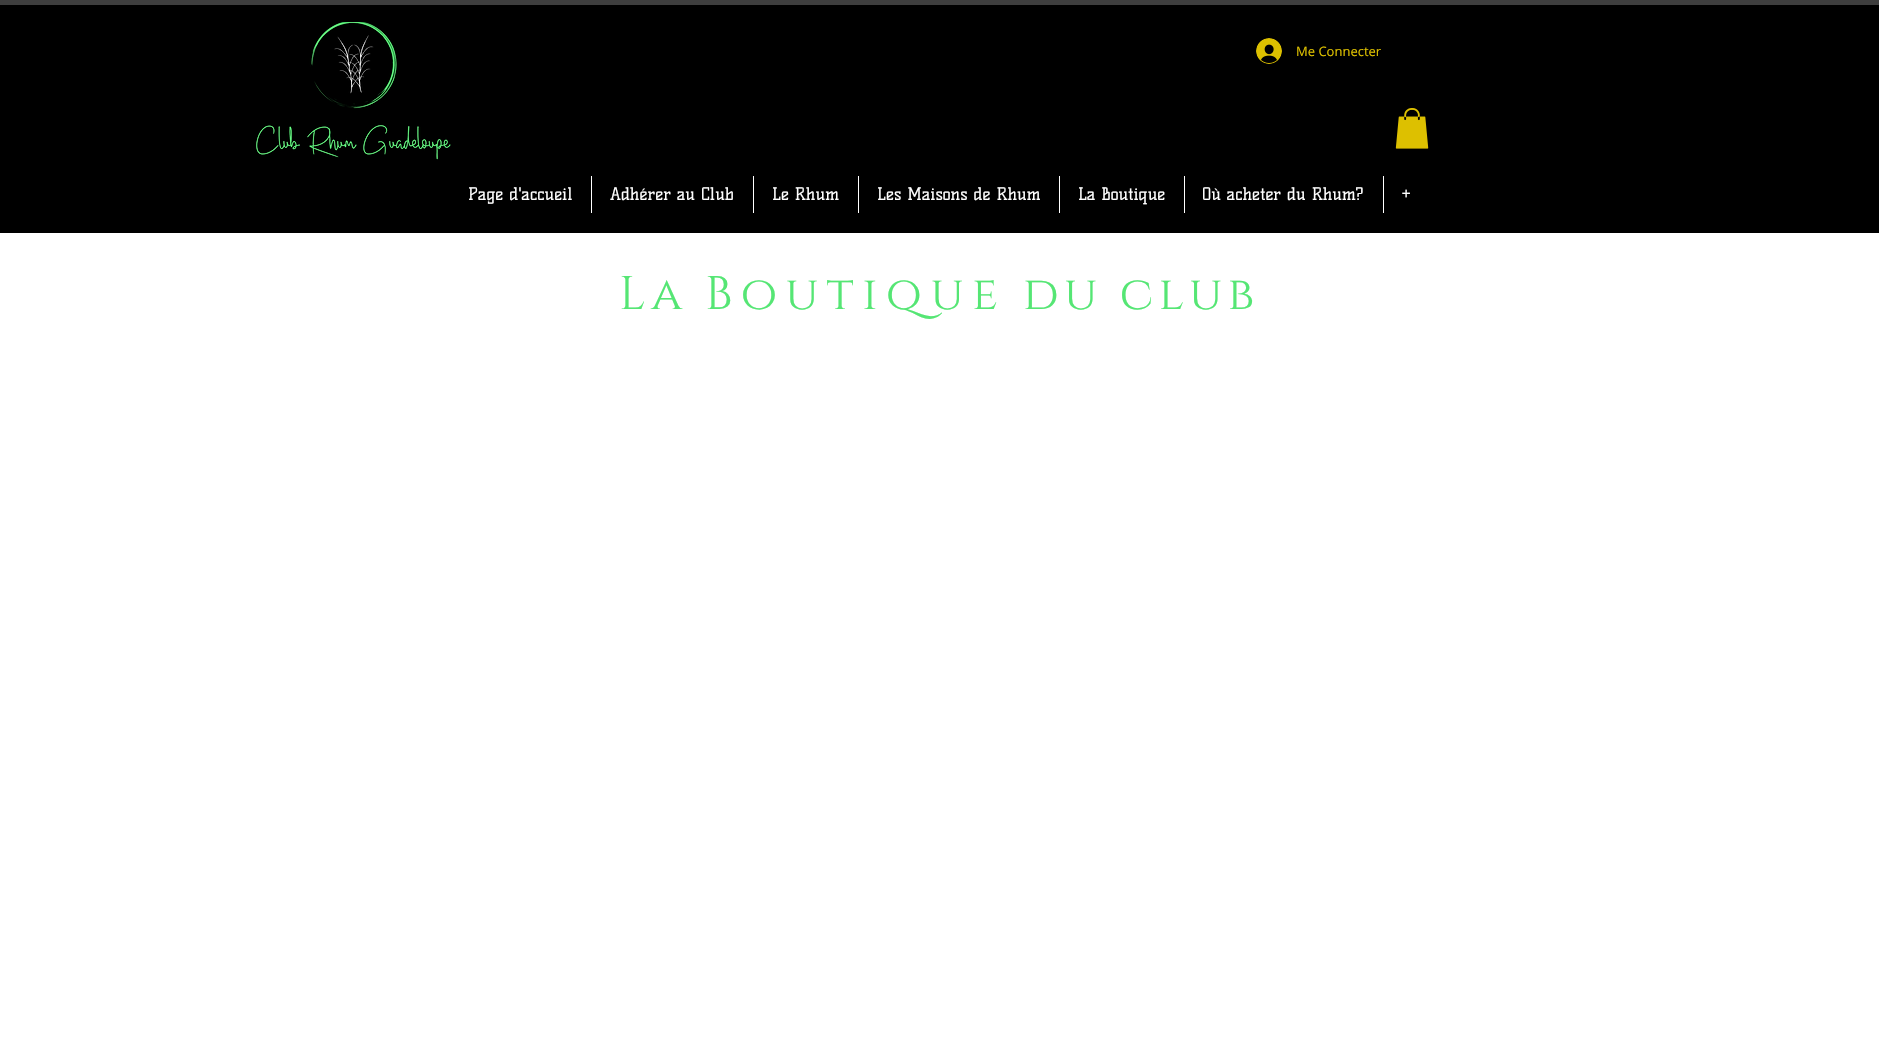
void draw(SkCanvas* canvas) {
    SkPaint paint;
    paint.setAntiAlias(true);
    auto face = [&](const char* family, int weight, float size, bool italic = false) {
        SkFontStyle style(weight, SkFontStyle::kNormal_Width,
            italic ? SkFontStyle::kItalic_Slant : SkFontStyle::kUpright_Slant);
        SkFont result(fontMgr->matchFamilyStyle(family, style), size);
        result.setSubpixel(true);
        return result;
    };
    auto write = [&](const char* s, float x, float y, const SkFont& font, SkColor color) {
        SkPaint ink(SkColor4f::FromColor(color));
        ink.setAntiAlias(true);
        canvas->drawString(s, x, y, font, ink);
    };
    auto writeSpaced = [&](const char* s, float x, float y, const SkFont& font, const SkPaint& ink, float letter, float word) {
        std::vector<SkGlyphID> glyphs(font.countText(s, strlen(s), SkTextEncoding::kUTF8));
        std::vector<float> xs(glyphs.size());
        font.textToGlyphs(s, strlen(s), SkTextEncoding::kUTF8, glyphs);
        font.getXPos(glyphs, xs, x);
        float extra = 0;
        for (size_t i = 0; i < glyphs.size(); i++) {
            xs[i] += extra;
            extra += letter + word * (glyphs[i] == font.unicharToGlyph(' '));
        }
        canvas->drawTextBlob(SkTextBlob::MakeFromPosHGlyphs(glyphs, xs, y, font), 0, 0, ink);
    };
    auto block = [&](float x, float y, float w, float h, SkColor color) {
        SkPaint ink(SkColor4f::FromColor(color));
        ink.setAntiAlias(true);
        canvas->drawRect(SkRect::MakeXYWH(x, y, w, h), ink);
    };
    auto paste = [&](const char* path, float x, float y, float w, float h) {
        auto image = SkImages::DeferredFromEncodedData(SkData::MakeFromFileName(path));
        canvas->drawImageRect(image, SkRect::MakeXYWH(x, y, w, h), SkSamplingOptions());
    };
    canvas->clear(SK_ColorWHITE);
    block(0, 5, 1879, 228, SK_ColorBLACK);
    block(0, 0, 1879, 5, SkColorSetRGB(62, 62, 62));
    paste("pic1.png", 256, 22, 195, 138);
    paste("pic2.png", 1256, 38, 26, 26);
    auto kFont1 = face("Open Sans", 400, 13);
    write("Me Connecter", 1296, 56, kFont1, SkColorSetRGB(221, 192, 0));
    paste("pic3.png", 1395, 108, 34, 41);
    auto kFont2 = face("Kelly Slab", 400, 17);
    write("Page d'accueil", 468, 200, kFont2, SK_ColorWHITE);
    block(591, 176, 1, 37, SK_ColorWHITE);
    write("Adhérer au Club", 610, 200, kFont2, SK_ColorWHITE);
    block(753, 176, 1, 37, SK_ColorWHITE);
    write("Le Rhum", 772, 200, kFont2, SK_ColorWHITE);
    block(858, 176, 1, 37, SK_ColorWHITE);
    write("Les Maisons de Rhum", 877, 200, kFont2, SK_ColorWHITE);
    block(1059, 176, 1, 37, SK_ColorWHITE);
    write("La Boutique", 1078, 200, kFont2, SK_ColorWHITE);
    block(1184, 176, 1, 37, SK_ColorWHITE);
    write("Où acheter du Rhum?", 1202, 200, kFont2, SK_ColorWHITE);
    block(1383, 176, 1, 37, SK_ColorWHITE);
    write("+", 1401, 200, kFont2, SK_ColorWHITE);
    auto kFont3 = face("Cinzel", 400, 47);
    paint.setColor(SkColorSetRGB(85, 230, 116));
    writeSpaced("La", 619, 309, kFont3, paint, 5.5f, 0);
    writeSpaced("Boutique", 705, 309, kFont3, paint, 8.25f, 0);
    writeSpaced("du club", 1023, 309, kFont3, paint, 5.5f, 0);
}
